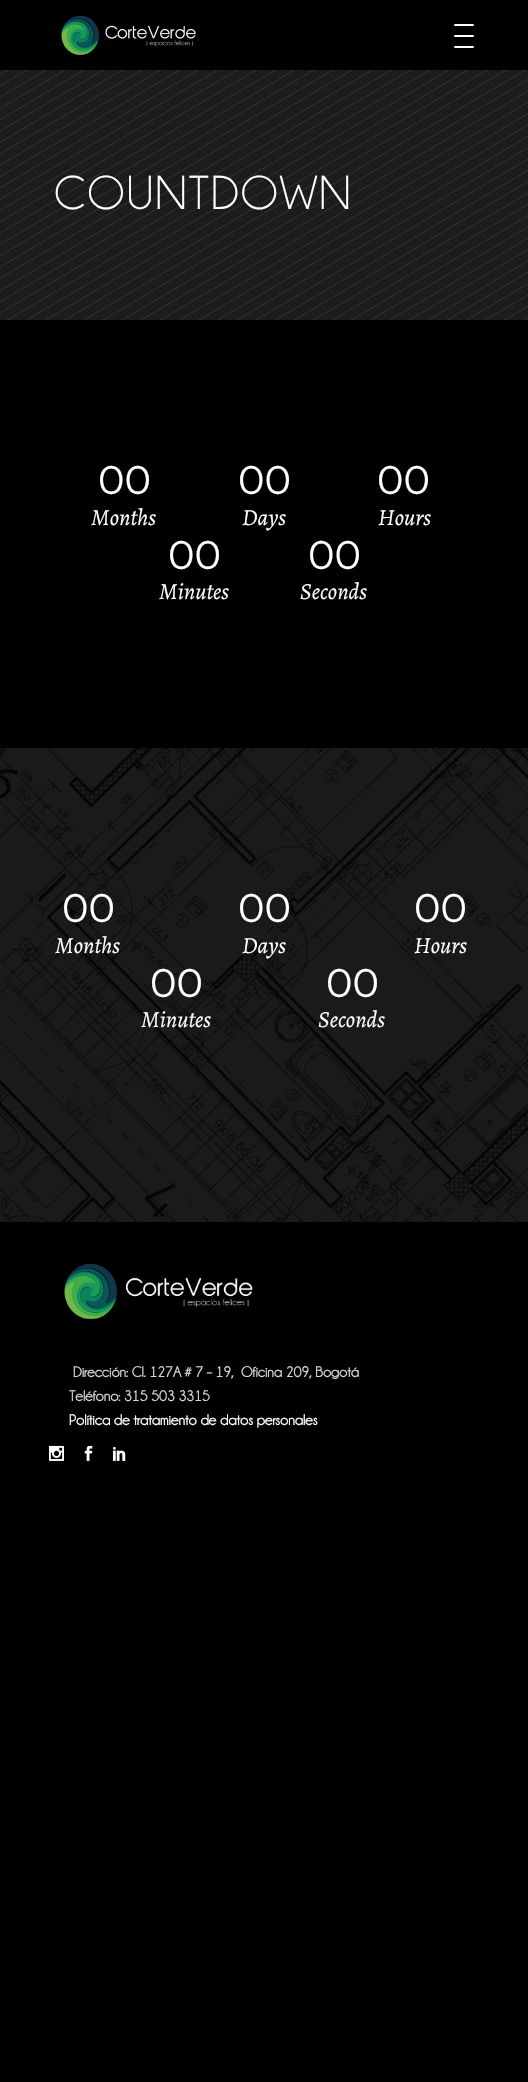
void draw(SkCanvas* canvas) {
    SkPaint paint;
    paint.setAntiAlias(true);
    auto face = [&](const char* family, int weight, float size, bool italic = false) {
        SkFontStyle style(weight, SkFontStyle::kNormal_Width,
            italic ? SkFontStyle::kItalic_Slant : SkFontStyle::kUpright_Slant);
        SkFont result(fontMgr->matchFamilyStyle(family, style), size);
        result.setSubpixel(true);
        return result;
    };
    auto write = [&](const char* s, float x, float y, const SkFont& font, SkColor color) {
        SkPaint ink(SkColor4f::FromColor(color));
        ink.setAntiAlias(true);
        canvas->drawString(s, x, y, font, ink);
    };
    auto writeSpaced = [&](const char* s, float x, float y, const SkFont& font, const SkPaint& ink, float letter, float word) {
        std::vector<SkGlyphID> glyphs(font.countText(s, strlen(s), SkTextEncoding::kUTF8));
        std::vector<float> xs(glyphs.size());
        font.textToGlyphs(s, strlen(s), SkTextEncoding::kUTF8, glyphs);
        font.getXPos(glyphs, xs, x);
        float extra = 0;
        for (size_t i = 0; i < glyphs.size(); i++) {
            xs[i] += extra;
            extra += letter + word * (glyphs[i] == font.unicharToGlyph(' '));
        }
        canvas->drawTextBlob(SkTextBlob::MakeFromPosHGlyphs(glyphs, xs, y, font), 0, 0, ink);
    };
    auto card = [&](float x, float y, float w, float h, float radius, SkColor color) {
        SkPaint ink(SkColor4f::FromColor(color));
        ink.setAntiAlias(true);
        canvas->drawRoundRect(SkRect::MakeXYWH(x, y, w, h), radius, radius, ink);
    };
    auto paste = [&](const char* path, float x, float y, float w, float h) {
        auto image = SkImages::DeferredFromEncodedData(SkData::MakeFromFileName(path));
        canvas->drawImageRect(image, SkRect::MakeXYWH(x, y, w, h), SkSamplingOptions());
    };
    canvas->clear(SK_ColorBLACK);
    paste("pic1.png", 61, 15, 135, 40);
    card(454, 24, 20, 2, 1, SK_ColorWHITE);
    card(454, 35, 20, 2, 1, SK_ColorWHITE);
    card(454, 46, 20, 2, 1, SK_ColorWHITE);
    paste("pic2.png", 0, 70, 528, 250);
    auto kFont1 = face("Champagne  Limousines", 400, 48);
    paint.setColor(SK_ColorWHITE);
    writeSpaced("COUNTDOWN", 54, 209, kFont1, paint, 2, 0);
    auto kFont2 = face("Montserrat", 400, 40);
    write("00", 98, 494, kFont2, SK_ColorWHITE);
    auto kFont3 = face("Alegreya", 400, 23, true);
    write("Months", 91, 525, kFont3, SK_ColorWHITE);
    write("00", 238, 494, kFont2, SK_ColorWHITE);
    write("Days", 242, 525, kFont3, SK_ColorWHITE);
    write("00", 377, 494, kFont2, SK_ColorWHITE);
    write("Hours", 378, 525, kFont3, SK_ColorWHITE);
    write("00", 168, 569, kFont2, SK_ColorWHITE);
    write("Minutes", 159, 599, kFont3, SK_ColorWHITE);
    write("00", 308, 569, kFont2, SK_ColorWHITE);
    write("Seconds", 300, 599, kFont3, SK_ColorWHITE);
    paste("pic3.png", 0, 748, 528, 474);
    write("00", 62, 922, kFont2, SK_ColorWHITE);
    write("Months", 55, 953, kFont3, SK_ColorWHITE);
    write("00", 238, 922, kFont2, SK_ColorWHITE);
    write("Days", 242, 953, kFont3, SK_ColorWHITE);
    write("00", 414, 922, kFont2, SK_ColorWHITE);
    write("Hours", 414, 953, kFont3, SK_ColorWHITE);
    write("00", 150, 997, kFont2, SK_ColorWHITE);
    write("Minutes", 141, 1027, kFont3, SK_ColorWHITE);
    write("00", 326, 997, kFont2, SK_ColorWHITE);
    write("Seconds", 318, 1027, kFont3, SK_ColorWHITE);
    paste("pic4.png", 64, 1263, 189, 57);
    auto kFont4 = face("Champagne  Limousines", 700, 15);
    write("Dirección: Cl. 127A # 7 – 19,  Oficina 209, Bogotá", 73, 1377, kFont4, SkColorSetRGB(216, 216, 216));
    write("Teléfono: 315 503 3315", 69, 1401, kFont4, SkColorSetRGB(216, 216, 216));
    write("Política de tratamiento de datos personales", 69, 1425, kFont4, SK_ColorWHITE);
    paste("pic5.png", 49, 1445, 15, 16);
    paste("pic6.png", 84, 1445, 9, 16);
    paste("pic7.png", 112, 1446, 14, 15);
}
